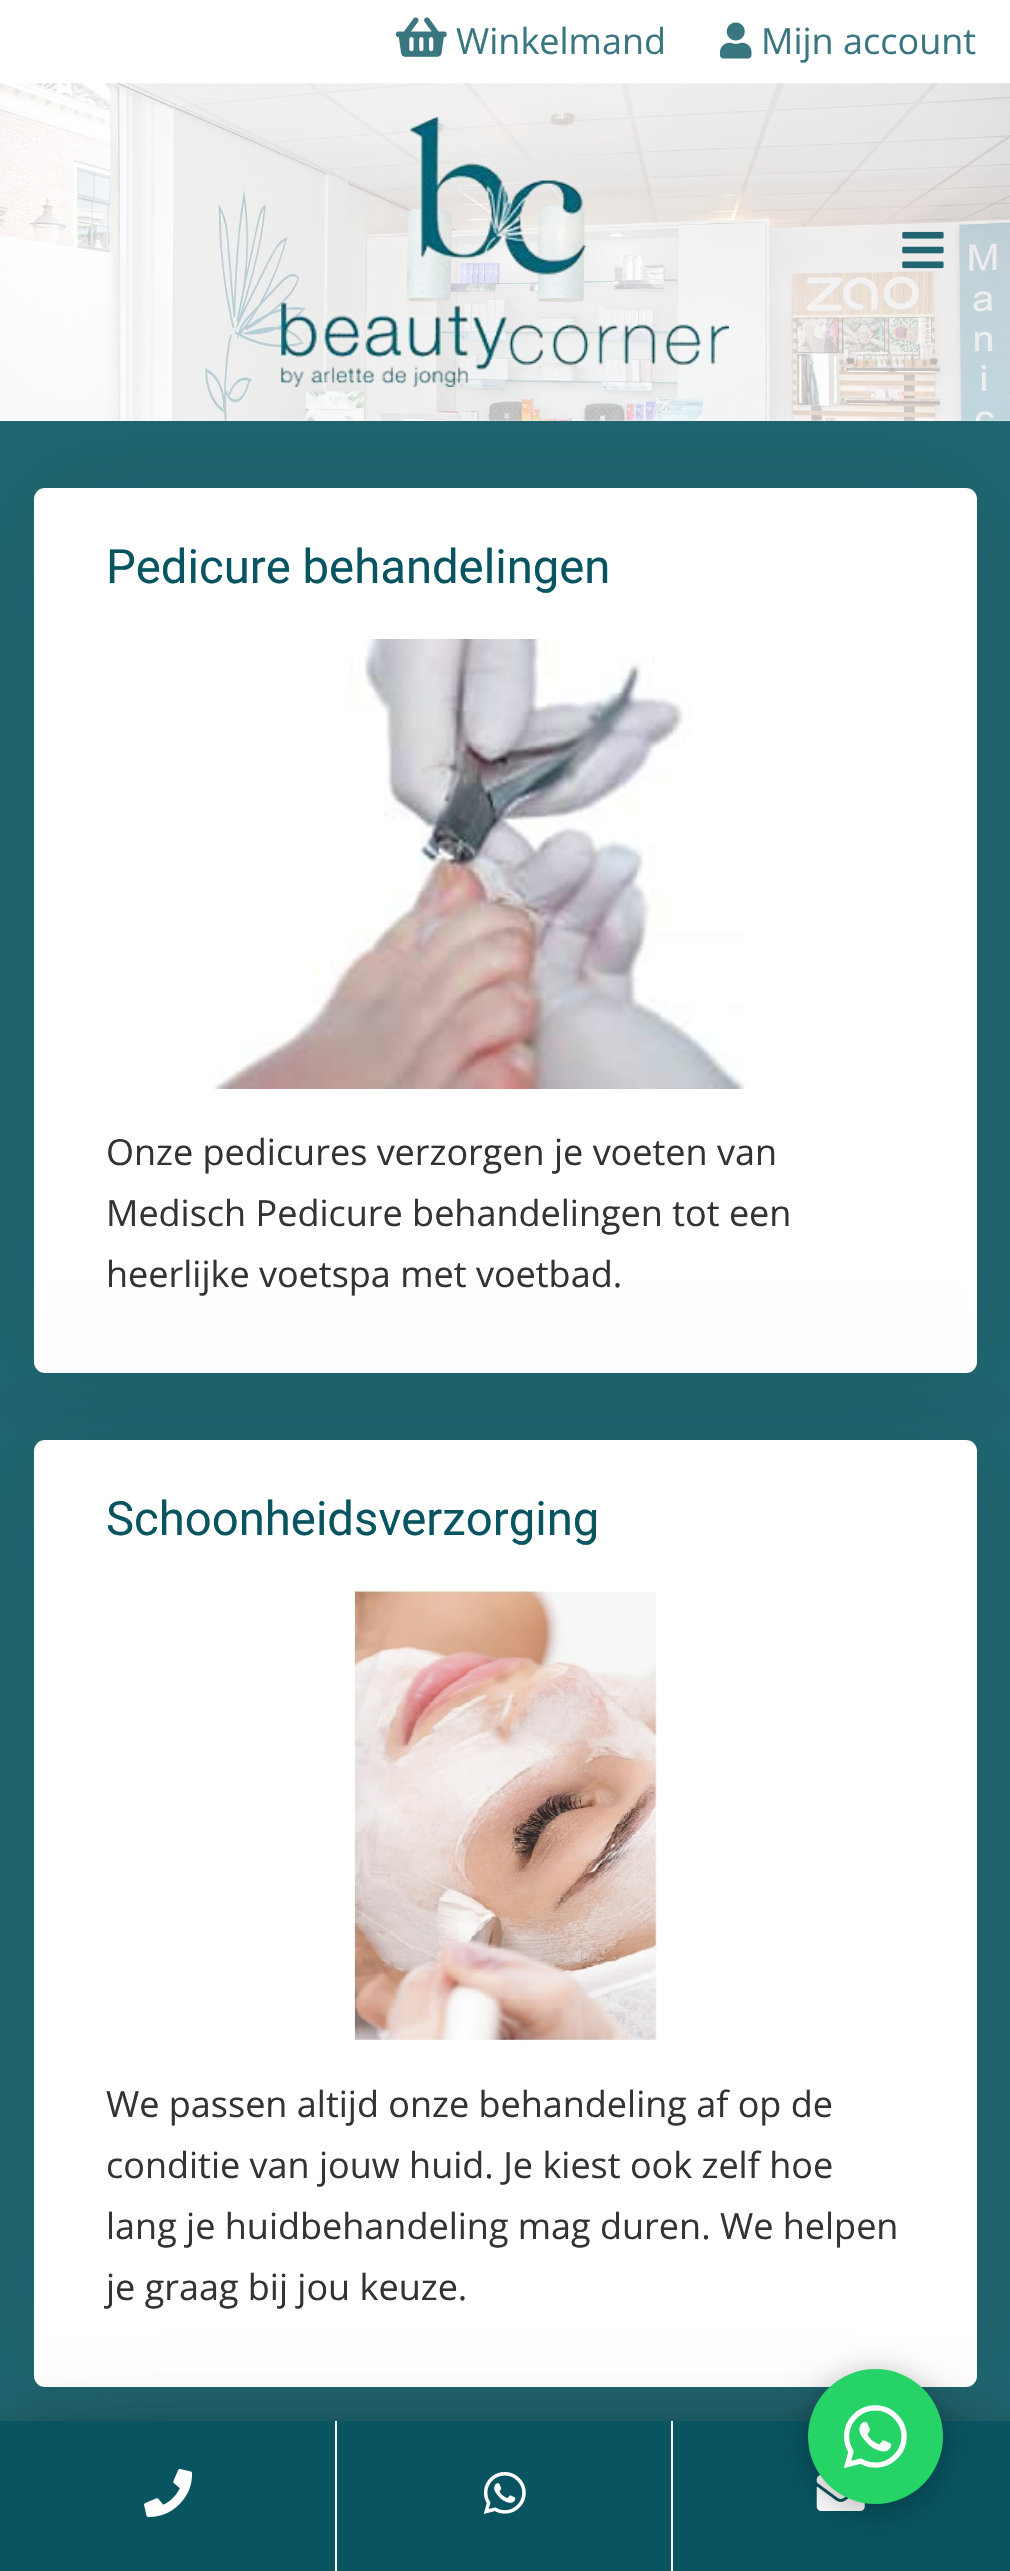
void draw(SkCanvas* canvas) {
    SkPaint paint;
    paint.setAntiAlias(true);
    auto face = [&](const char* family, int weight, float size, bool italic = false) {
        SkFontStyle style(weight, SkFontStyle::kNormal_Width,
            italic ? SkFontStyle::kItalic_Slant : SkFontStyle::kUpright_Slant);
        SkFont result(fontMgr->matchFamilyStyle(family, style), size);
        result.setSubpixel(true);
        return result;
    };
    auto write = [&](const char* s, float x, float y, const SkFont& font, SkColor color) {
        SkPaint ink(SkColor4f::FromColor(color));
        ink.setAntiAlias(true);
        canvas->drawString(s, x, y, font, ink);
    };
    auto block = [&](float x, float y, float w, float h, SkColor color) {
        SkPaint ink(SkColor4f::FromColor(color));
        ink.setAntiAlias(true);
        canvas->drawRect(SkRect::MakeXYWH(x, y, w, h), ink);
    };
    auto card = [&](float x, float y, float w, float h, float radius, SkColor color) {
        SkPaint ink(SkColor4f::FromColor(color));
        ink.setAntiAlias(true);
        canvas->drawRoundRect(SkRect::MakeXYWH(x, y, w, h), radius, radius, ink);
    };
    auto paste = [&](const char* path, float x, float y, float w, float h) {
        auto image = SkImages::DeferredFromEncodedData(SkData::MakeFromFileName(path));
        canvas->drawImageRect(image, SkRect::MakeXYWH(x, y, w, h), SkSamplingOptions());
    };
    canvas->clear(SK_ColorWHITE);
    paste("pic1.png", 396, 17, 51, 40);
    auto kFont1 = face("Open Sans", 400, 36);
    write("Winkelmand", 456, 54, kFont1, SkColorSetRGB(57, 118, 128));
    paste("pic2.png", 720, 22, 32, 37);
    write("Mijn account", 761, 54, kFont1, SkColorSetRGB(57, 118, 128));
    block(0, 421, 1010, 2000, SkColorSetRGB(32, 101, 112));
    paint.setColor(SkColorSetARGB(26, 0, 0, 0));
    paint.setMaskFilter(SkMaskFilter::MakeBlur(kNormal_SkBlurStyle, 56));
    canvas->drawRect(SkRect::MakeXYWH(45, 500, 920, 861), paint);
    paint.setMaskFilter(nullptr);
    paste("pic3.png", 0, 83, 1010, 338);
    block(0, 83, 1010, 338, SkColorSetARGB(179, 255, 255, 255));
    paste("pic4.png", 281, 117, 448, 270);
    paste("pic5.png", 902, 231, 42, 38);
    card(34, 488, 943, 885, 11, SK_ColorWHITE);
    auto kFont2 = face("Roboto", 400, 47.25f);
    write("Pedicure behandelingen", 106, 583, kFont2, SkColorSetRGB(8, 84, 97));
    paste("pic6.png", 213, 639, 532, 450);
    write("Onze pedicures verzorgen je voeten van", 106, 1165, kFont1, SkColorSetRGB(51, 51, 51));
    write("Medisch Pedicure behandelingen tot een", 106, 1226, kFont1, SkColorSetRGB(51, 51, 51));
    write("heerlijke voetspa met voetbad.", 106, 1287, kFont1, SkColorSetRGB(51, 51, 51));
    paint.setMaskFilter(SkMaskFilter::MakeBlur(kNormal_SkBlurStyle, 56));
    canvas->drawRect(SkRect::MakeXYWH(45, 1451, 920, 925), paint);
    paint.setMaskFilter(nullptr);
    card(34, 1440, 943, 947, 11, SK_ColorWHITE);
    write("Schoonheidsverzorging", 106, 1535, kFont2, SkColorSetRGB(8, 84, 97));
    paste("pic7.png", 353, 1590, 304, 451);
    write("We passen altijd onze behandeling af op de", 106, 2117, kFont1, SkColorSetRGB(51, 51, 51));
    write("conditie van jouw huid. Je kiest ook zelf hoe", 106, 2178, kFont1, SkColorSetRGB(51, 51, 51));
    write("lang je huidbehandeling mag duren. We helpen", 106, 2239, kFont1, SkColorSetRGB(51, 51, 51));
    write("je graag bij jou keuze.", 106, 2300, kFont1, SkColorSetRGB(51, 51, 51));
    paint.setMaskFilter(SkMaskFilter::MakeBlur(kNormal_SkBlurStyle, 56));
    canvas->drawRect(SkRect::MakeXYWH(45, 2466, 920, 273), paint);
    paint.setMaskFilter(nullptr);
    paint.setColor(SkColorSetARGB(64, 0, 0, 0));
    paint.setMaskFilter(SkMaskFilter::MakeBlur(kNormal_SkBlurStyle, 28));
    canvas->drawRect(SkRect::MakeXYWH(0, 2428, 1010, 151), paint);
    paint.setMaskFilter(nullptr);
    block(0, 2421, 1010, 150, SkColorSetRGB(8, 84, 97));
    paste("pic11.png", 816, 2475, 49, 36);
    paint.setColor(SkColorSetARGB(77, 0, 0, 0));
    paint.setMaskFilter(SkMaskFilter::MakeBlur(kNormal_SkBlurStyle, 17));
    canvas->drawRoundRect(SkRect::MakeXYWH(808, 2376, 135, 135), 67.5f, 67.5f, paint);
    paint.setMaskFilter(nullptr);
    paint.setColor(SkColorSetRGB(37, 211, 102));
    canvas->drawCircle(875.5f, 2436.5f, 67.5f, paint);
    paste("pic8.png", 843, 2405, 64, 64);
    block(335, 2421, 2, 150, SK_ColorWHITE);
    paste("pic9.png", 144, 2469, 49, 48);
    block(671, 2421, 2, 150, SK_ColorWHITE);
    paste("pic10.png", 483, 2472, 43, 42);
}
